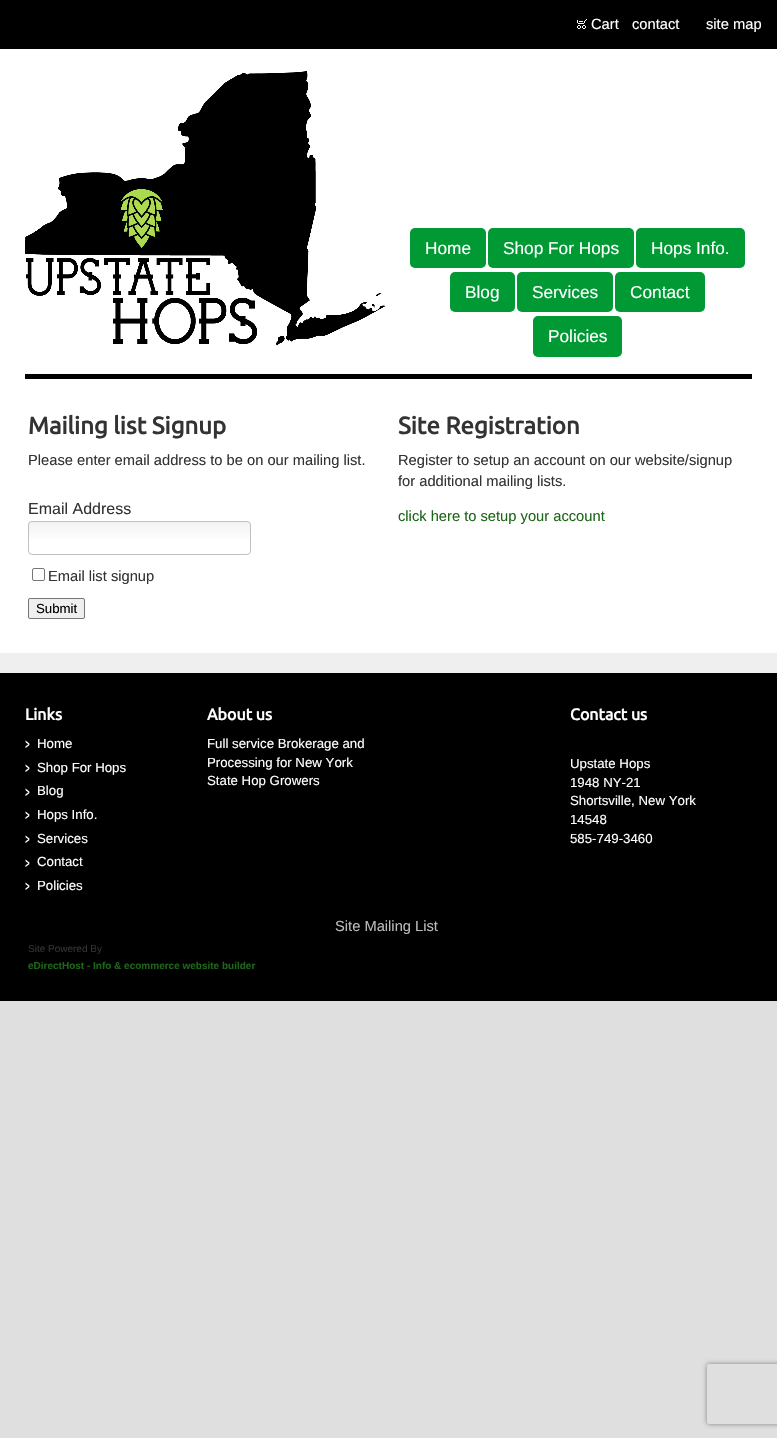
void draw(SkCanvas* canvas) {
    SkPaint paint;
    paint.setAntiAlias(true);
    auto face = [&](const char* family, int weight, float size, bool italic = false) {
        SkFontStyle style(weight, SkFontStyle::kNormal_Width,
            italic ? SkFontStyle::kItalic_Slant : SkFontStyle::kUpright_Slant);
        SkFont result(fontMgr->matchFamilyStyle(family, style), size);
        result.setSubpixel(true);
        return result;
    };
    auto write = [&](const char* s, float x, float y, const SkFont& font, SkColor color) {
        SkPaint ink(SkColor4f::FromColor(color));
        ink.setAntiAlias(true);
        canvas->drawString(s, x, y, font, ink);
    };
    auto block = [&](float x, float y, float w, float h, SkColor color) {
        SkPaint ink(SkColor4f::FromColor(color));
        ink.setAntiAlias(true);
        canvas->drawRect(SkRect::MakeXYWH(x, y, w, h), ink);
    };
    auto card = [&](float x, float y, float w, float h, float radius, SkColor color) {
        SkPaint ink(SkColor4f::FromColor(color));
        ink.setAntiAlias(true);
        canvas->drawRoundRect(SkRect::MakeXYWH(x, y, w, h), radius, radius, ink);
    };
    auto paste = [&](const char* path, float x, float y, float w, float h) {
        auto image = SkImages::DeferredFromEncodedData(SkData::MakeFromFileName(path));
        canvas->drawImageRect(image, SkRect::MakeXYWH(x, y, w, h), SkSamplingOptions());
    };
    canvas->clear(SkColorSetRGB(223, 223, 223));
    block(0, 49, 777, 604, SK_ColorWHITE);
    block(0, 0, 777, 49, SK_ColorBLACK);
    paste("pic1.png", 577, 19, 10, 10);
    auto kFont1 = face("Liberation Sans", 400, 14.7f);
    write("Cart", 591, 29, kFont1, SK_ColorWHITE);
    write("contact", 632, 29, kFont1, SK_ColorWHITE);
    write("site map", 706, 29, kFont1, SK_ColorWHITE);
    paste("pic2.png", 25, 71, 360, 275);
    card(410, 228, 76, 40, 5, SkColorSetRGB(0, 153, 51));
    auto kFont2 = face("Liberation Sans", 400, 17.25f);
    write("Home", 425, 254, kFont2, SK_ColorWHITE);
    card(488, 228, 146, 40, 5, SkColorSetRGB(0, 153, 51));
    write("Shop For Hops", 503, 254, kFont2, SK_ColorWHITE);
    card(636, 228, 109, 40, 5, SkColorSetRGB(0, 153, 51));
    write("Hops Info.", 651, 254, kFont2, SK_ColorWHITE);
    card(450, 272, 65, 40, 5, SkColorSetRGB(0, 153, 51));
    write("Blog", 465, 298, kFont2, SK_ColorWHITE);
    card(517, 272, 96, 40, 5, SkColorSetRGB(0, 153, 51));
    write("Services", 532, 298, kFont2, SK_ColorWHITE);
    card(615, 272, 90, 40, 5, SkColorSetRGB(0, 153, 51));
    write("Contact", 630, 298, kFont2, SK_ColorWHITE);
    card(533, 316, 89, 41, 5, SkColorSetRGB(0, 153, 51));
    write("Policies", 548, 342, kFont2, SK_ColorWHITE);
    block(25, 374, 727, 5, SK_ColorBLACK);
    auto kFont3 = face("Ubuntu", 700, 24);
    write("Mailing list Signup", 28, 434, kFont3, SkColorSetRGB(51, 51, 51));
    write("Please enter email address to be on our mailing list.", 28, 465, kFont1, SkColorSetRGB(51, 51, 51));
    auto kFont4 = face("Liberation Sans", 400, 16);
    write("Email Address", 28, 514, kFont4, SkColorSetRGB(51, 51, 51));
    canvas->save();
    canvas->clipPath(SkPathBuilder().moveTo(32, 521).lineTo(247, 521).cubicTo(249, 521, 251, 523, 251, 525).lineTo(251, 551).cubicTo(251, 553, 249, 555, 247, 555).lineTo(32, 555).cubicTo(30, 555, 28, 553, 28, 551).lineTo(28, 525).cubicTo(28, 523, 30, 521, 32, 521).close().detach(), true);
    {
        const SkColor colors[] = {SkColorSetRGB(242, 242, 242), SK_ColorWHITE};
        const float stops[] = {0, 0.6f};
        const SkPoint ends[] = {{140, 522}, {140, 554}};
        paint.setShader(SkGradientShader::MakeLinear(ends, colors, stops, 2, SkTileMode::kClamp));
        paint.setAlpha(255);
    }
    canvas->drawRect(SkRect::MakeXYWH(28, 522, 223, 32), paint);
    canvas->restore();
    paint.setStyle(SkPaint::kStroke_Style);
    paint.setStrokeWidth(1);
    paint.setShader(nullptr);
    paint.setColor(SkColorSetRGB(192, 192, 192));
    canvas->drawRoundRect(SkRect::MakeXYWH(28.5f, 521.5f, 222, 33), 3.5f, 3.5f, paint);
    paint.setColor(SkColorSetRGB(118, 118, 118));
    canvas->drawRoundRect(SkRect::MakeXYWH(32.5f, 568.5f, 12, 12), 1.5f, 1.5f, paint);
    write("Email list signup", 48, 581, kFont1, SkColorSetRGB(51, 51, 51));
    paint.setStyle(SkPaint::kFill_Style);
    paint.setColor(SkColorSetRGB(239, 239, 239));
    canvas->drawRoundRect(SkRect::MakeXYWH(28.5f, 598.5f, 56, 20), 1.5f, 1.5f, paint);
    paint.setStyle(SkPaint::kStroke_Style);
    paint.setColor(SkColorSetRGB(118, 118, 118));
    canvas->drawRoundRect(SkRect::MakeXYWH(28.5f, 598.5f, 56, 20), 1.5f, 1.5f, paint);
    auto kFont5 = face("Liberation Sans", 400, 13.25f);
    write("Submit", 36, 613, kFont5, SK_ColorBLACK);
    canvas->save();
    canvas->clipPath(SkPathBuilder(SkPathFillType::kEvenOdd).moveTo(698, 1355).lineTo(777, 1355).lineTo(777, 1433).lineTo(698, 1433).close().moveTo(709, 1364).lineTo(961, 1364).cubicTo(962, 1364, 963, 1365, 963, 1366).lineTo(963, 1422).cubicTo(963, 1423, 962, 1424, 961, 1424).lineTo(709, 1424).cubicTo(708, 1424, 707, 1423, 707, 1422).lineTo(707, 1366).cubicTo(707, 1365, 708, 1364, 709, 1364).close().detach(), true);
    paint.setStyle(SkPaint::kFill_Style);
    paint.setColor(SkColorSetRGB(128, 128, 128));
    paint.setMaskFilter(SkMaskFilter::MakeBlur(kNormal_SkBlurStyle, 2.5f));
    canvas->drawRoundRect(SkRect::MakeXYWH(707, 1364, 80, 60), 2, 2, paint);
    paint.setMaskFilter(nullptr);
    canvas->restore();
    write("Site Registration", 398, 434, kFont3, SkColorSetRGB(51, 51, 51));
    write("Register to setup an account on our website/signup", 398, 465, kFont1, SkColorSetRGB(51, 51, 51));
    write("for additional mailing lists.", 398, 486, kFont1, SkColorSetRGB(51, 51, 51));
    write("click here to setup your account", 398, 521, kFont1, SkColorSetRGB(29, 102, 25));
    block(0, 653, 777, 20, SkColorSetRGB(239, 239, 239));
    block(0, 673, 777, 328, SK_ColorBLACK);
    auto kFont6 = face("Ubuntu", 700, 16);
    write("Links", 25, 720, kFont6, SK_ColorWHITE);
    paste("pic3.png", 25, 740, 5, 8);
    write("Home", 37, 748, kFont5, SK_ColorWHITE);
    paste("pic3.png", 25, 764, 5, 8);
    write("Shop For Hops", 37, 772, kFont5, SK_ColorWHITE);
    paste("pic3.png", 25, 788, 5, 8);
    write("Blog", 37, 795, kFont5, SK_ColorWHITE);
    paste("pic3.png", 25, 811, 5, 8);
    write("Hops Info.", 37, 819, kFont5, SK_ColorWHITE);
    paste("pic3.png", 25, 835, 5, 8);
    write("Services", 37, 843, kFont5, SK_ColorWHITE);
    paste("pic3.png", 25, 859, 5, 8);
    write("Contact", 37, 866, kFont5, SK_ColorWHITE);
    paste("pic3.png", 25, 882, 5, 8);
    write("Policies", 37, 890, kFont5, SK_ColorWHITE);
    write("About us", 207, 720, kFont6, SK_ColorWHITE);
    write("Full service Brokerage and", 207, 748, kFont5, SK_ColorWHITE);
    write("Processing for New York", 207, 767, kFont5, SK_ColorWHITE);
    write("State Hop Growers", 207, 785, kFont5, SK_ColorWHITE);
    write("Contact us", 570, 720, kFont6, SK_ColorWHITE);
    write("Upstate Hops", 570, 768, kFont5, SK_ColorWHITE);
    write("1948 NY-21", 570, 787, kFont5, SK_ColorWHITE);
    write("Shortsville, New York", 570, 805, kFont5, SK_ColorWHITE);
    write("14548", 570, 824, kFont5, SK_ColorWHITE);
    write("585-749-3460", 570, 843, kFont5, SK_ColorWHITE);
    write("Site Mailing List", 335, 931, kFont1, SkColorSetRGB(187, 187, 187));
    auto kFont7 = face("Liberation Sans", 400, 10);
    write("Site Powered By", 28, 952, kFont7, SkColorSetRGB(51, 51, 51));
    auto kFont8 = face("Liberation Sans", 700, 10);
    write("eDirectHost - Info & ecommerce website builder", 28, 969, kFont8, SkColorSetRGB(29, 102, 25));
}
